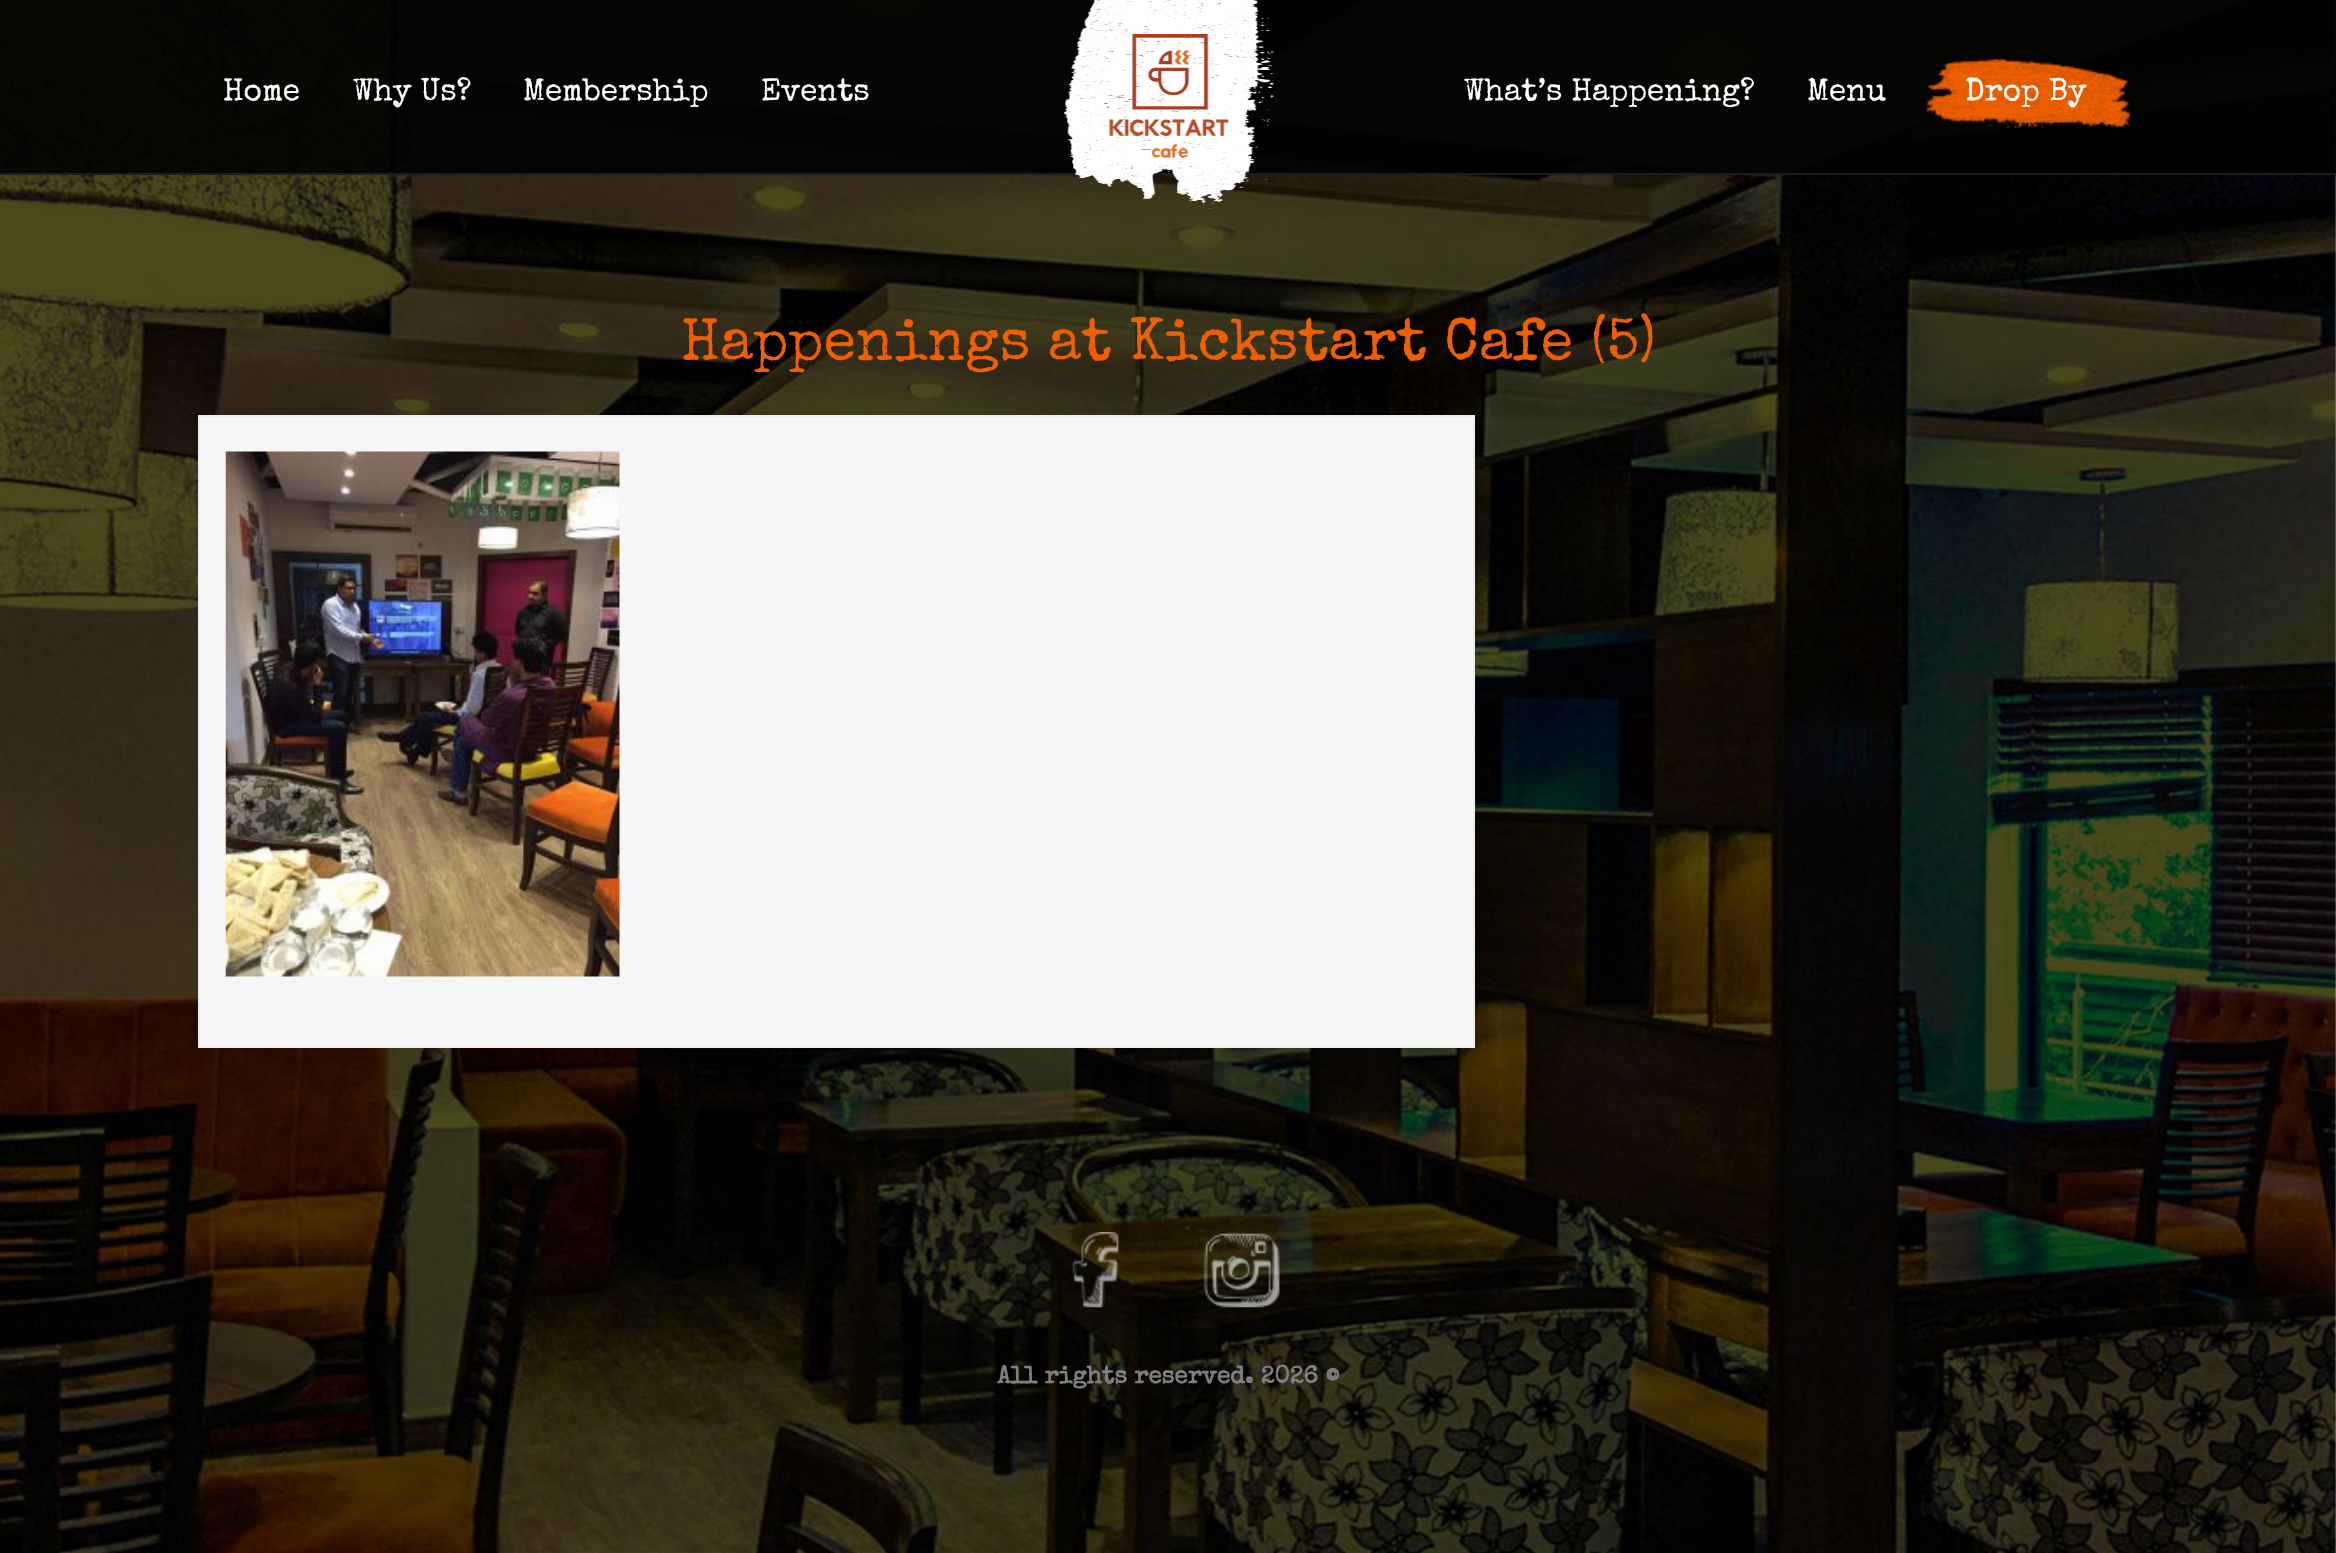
void draw(SkCanvas* canvas) {
    SkPaint paint;
    paint.setAntiAlias(true);
    auto face = [&](const char* family, int weight, float size, bool italic = false) {
        SkFontStyle style(weight, SkFontStyle::kNormal_Width,
            italic ? SkFontStyle::kItalic_Slant : SkFontStyle::kUpright_Slant);
        SkFont result(fontMgr->matchFamilyStyle(family, style), size);
        result.setSubpixel(true);
        return result;
    };
    auto write = [&](const char* s, float x, float y, const SkFont& font, SkColor color) {
        SkPaint ink(SkColor4f::FromColor(color));
        ink.setAntiAlias(true);
        canvas->drawString(s, x, y, font, ink);
    };
    auto block = [&](float x, float y, float w, float h, SkColor color) {
        SkPaint ink(SkColor4f::FromColor(color));
        ink.setAntiAlias(true);
        canvas->drawRect(SkRect::MakeXYWH(x, y, w, h), ink);
    };
    auto paste = [&](const char* path, float x, float y, float w, float h) {
        auto image = SkImages::DeferredFromEncodedData(SkData::MakeFromFileName(path));
        canvas->drawImageRect(image, SkRect::MakeXYWH(x, y, w, h), SkSamplingOptions());
    };
    canvas->clear(SK_ColorWHITE);
    paste("pic1.png", 0, 0, 2336, 1553);
    block(0, 0, 2336, 173, SkColorSetARGB(230, 0, 0, 0));
    block(0, 173, 2336, 2, SkColorSetRGB(29, 29, 29));
    auto kFont1 = face("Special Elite", 400, 31.5f);
    write("Home", 223, 100, kFont1, SK_ColorWHITE);
    write("Why Us?", 353, 100, kFont1, SK_ColorWHITE);
    write("Membership", 523, 100, kFont1, SK_ColorWHITE);
    write("Events", 761, 100, kFont1, SK_ColorWHITE);
    paste("pic2.png", 1064, 0, 211, 209);
    write("What’s Happening?", 1464, 100, kFont1, SK_ColorWHITE);
    write("Menu", 1807, 100, kFont1, SK_ColorWHITE);
    paste("pic3.png", 1922, 59, 208, 69);
    write("Drop By", 1965, 100, kFont1, SK_ColorWHITE);
    auto kFont2 = face("Special Elite", 400, 59.5f);
    write("Happenings at Kickstart Cafe (5)", 681, 359, kFont2, SkColorSetRGB(239, 95, 1));
    paint.setColor(SkColorSetRGB(246, 246, 246));
    canvas->drawRect(SkRect::MakeXYWH(199, 416, 1275, 631), paint);
    paint.setStyle(SkPaint::kStroke_Style);
    paint.setStrokeWidth(2);
    paint.setColor(SkColorSetRGB(238, 238, 238));
    canvas->drawRect(SkRect::MakeXYWH(199, 416, 1275, 631), paint);
    paste("pic4.png", 225, 451, 395, 526);
    paste("pic5.png", 1072, 1232, 47, 76);
    paste("pic6.png", 1203, 1232, 77, 76);
    auto kFont3 = face("Special Elite", 700, 24.5f);
    write("All rights reserved. 2026 ©", 997, 1383, kFont3, SkColorSetRGB(127, 127, 127));
}
